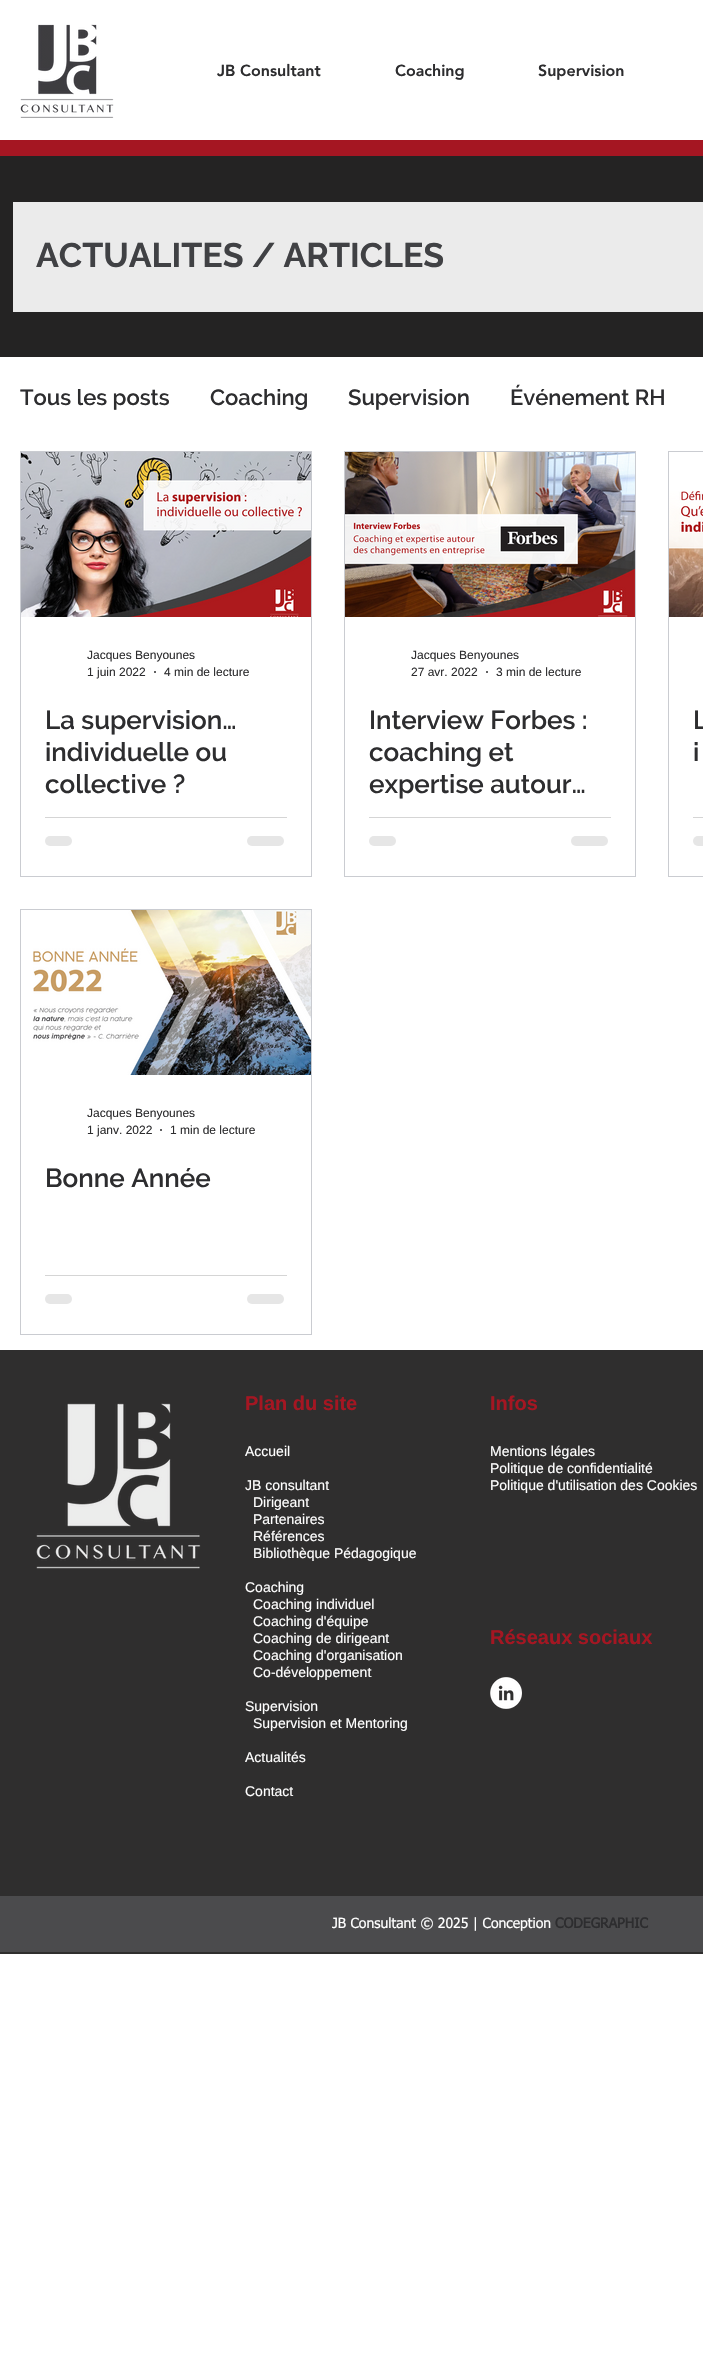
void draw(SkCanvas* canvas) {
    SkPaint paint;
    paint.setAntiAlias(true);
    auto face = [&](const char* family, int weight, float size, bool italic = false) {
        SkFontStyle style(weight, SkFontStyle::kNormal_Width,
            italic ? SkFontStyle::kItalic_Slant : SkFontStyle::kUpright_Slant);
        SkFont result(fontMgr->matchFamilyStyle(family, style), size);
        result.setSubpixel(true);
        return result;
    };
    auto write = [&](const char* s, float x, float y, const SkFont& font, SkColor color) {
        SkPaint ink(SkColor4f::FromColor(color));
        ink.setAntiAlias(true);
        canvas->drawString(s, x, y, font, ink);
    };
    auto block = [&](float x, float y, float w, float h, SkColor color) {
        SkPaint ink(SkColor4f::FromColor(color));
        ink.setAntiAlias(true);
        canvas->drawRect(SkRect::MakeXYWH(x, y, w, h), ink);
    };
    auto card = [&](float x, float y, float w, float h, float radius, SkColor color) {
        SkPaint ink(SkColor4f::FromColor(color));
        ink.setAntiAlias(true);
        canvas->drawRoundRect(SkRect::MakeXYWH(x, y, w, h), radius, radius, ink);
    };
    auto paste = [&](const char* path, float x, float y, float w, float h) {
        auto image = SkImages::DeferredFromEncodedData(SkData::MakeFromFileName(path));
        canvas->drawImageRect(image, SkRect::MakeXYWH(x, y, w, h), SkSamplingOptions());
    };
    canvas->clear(SK_ColorWHITE);
    paste("pic1.png", 20, 24, 94, 94);
    auto kFont1 = face("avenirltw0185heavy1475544", 900, 16);
    write("JB Consultant", 217, 76, kFont1, SkColorSetRGB(45, 45, 47));
    write("Coaching", 395, 76, kFont1, SkColorSetRGB(45, 45, 47));
    write("Supervision", 538, 76, kFont1, SkColorSetRGB(45, 45, 47));
    block(0, 140, 703, 16, SkColorSetRGB(165, 22, 34));
    block(0, 156, 703, 201, SkColorSetRGB(36, 35, 35));
    block(13, 202, 690, 110, SkColorSetRGB(235, 235, 235));
    auto kFont2 = face("Raleway", 700, 34);
    write("ACTUALITES / ARTICLES", 36, 267, kFont2, SkColorSetRGB(64, 65, 68));
    auto kFont3 = face("Raleway", 600, 22);
    write("Tous les posts", 20, 405, kFont3, SkColorSetRGB(45, 45, 47));
    write("Coaching", 210, 405, kFont3, SkColorSetRGB(45, 45, 47));
    write("Supervision", 348, 405, kFont3, SkColorSetRGB(45, 45, 47));
    write("Événement RH", 510, 405, kFont3, SkColorSetRGB(45, 45, 47));
    paint.setStyle(SkPaint::kStroke_Style);
    paint.setStrokeWidth(1);
    paint.setColor(SkColorSetRGB(202, 204, 209));
    canvas->drawRect(SkRect::MakeXYWH(20.5f, 451.5f, 291, 425), paint);
    paste("pic2.png", 21, 452, 290, 165);
    auto kFont4 = face("Liberation Sans", 400, 12);
    write("Jacques Benyounes", 87, 659, kFont4, SkColorSetRGB(45, 45, 47));
    write("1 juin 2022", 87, 676, kFont4, SkColorSetRGB(45, 45, 47));
    paint.setStyle(SkPaint::kFill_Style);
    paint.setColor(SkColorSetRGB(45, 45, 47));
    canvas->drawCircle(155, 672, 1, paint);
    write("4 min de lecture", 164, 676, kFont4, SkColorSetRGB(45, 45, 47));
    auto kFont5 = face("Raleway", 600, 26);
    write("La supervision…", 45, 729, kFont5, SkColorSetRGB(45, 45, 47));
    write("individuelle ou", 45, 761, kFont5, SkColorSetRGB(45, 45, 47));
    write("collective ?", 45, 793, kFont5, SkColorSetRGB(45, 45, 47));
    block(45, 817, 242, 1, SkColorSetRGB(213, 213, 213));
    card(45, 836, 27, 10, 5, SkColorSetRGB(230, 230, 230));
    card(247, 836, 37, 10, 5, SkColorSetRGB(230, 230, 230));
    paint.setStyle(SkPaint::kStroke_Style);
    paint.setColor(SkColorSetRGB(202, 204, 209));
    canvas->drawRect(SkRect::MakeXYWH(344.5f, 451.5f, 291, 425), paint);
    paste("pic3.png", 345, 452, 290, 165);
    write("Jacques Benyounes", 411, 659, kFont4, SkColorSetRGB(45, 45, 47));
    write("27 avr. 2022", 411, 676, kFont4, SkColorSetRGB(45, 45, 47));
    paint.setStyle(SkPaint::kFill_Style);
    paint.setColor(SkColorSetRGB(45, 45, 47));
    canvas->drawCircle(487, 672, 1, paint);
    write("3 min de lecture", 496, 676, kFont4, SkColorSetRGB(45, 45, 47));
    write("Interview Forbes :", 369, 729, kFont5, SkColorSetRGB(45, 45, 47));
    write("coaching et", 369, 761, kFont5, SkColorSetRGB(45, 45, 47));
    write("expertise autour…", 369, 793, kFont5, SkColorSetRGB(45, 45, 47));
    block(369, 817, 242, 1, SkColorSetRGB(213, 213, 213));
    card(369, 836, 27, 10, 5, SkColorSetRGB(230, 230, 230));
    card(571, 836, 37, 10, 5, SkColorSetRGB(230, 230, 230));
    paint.setStyle(SkPaint::kStroke_Style);
    paint.setColor(SkColorSetRGB(202, 204, 209));
    canvas->drawRect(SkRect::MakeXYWH(668.5f, 451.5f, 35, 425), paint);
    paste("pic4.png", 669, 491, 34, 126);
    write("L", 693, 729, kFont5, SkColorSetRGB(45, 45, 47));
    write("i", 693, 761, kFont5, SkColorSetRGB(45, 45, 47));
    block(693, 817, 10, 1, SkColorSetRGB(213, 213, 213));
    card(693, 836, 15, 10, 5, SkColorSetRGB(230, 230, 230));
    canvas->drawRect(SkRect::MakeXYWH(20.5f, 909.5f, 291, 425), paint);
    paste("pic5.png", 33, 910, 278, 165);
    write("Jacques Benyounes", 87, 1117, kFont4, SkColorSetRGB(45, 45, 47));
    write("1 janv. 2022", 87, 1134, kFont4, SkColorSetRGB(45, 45, 47));
    paint.setStyle(SkPaint::kFill_Style);
    paint.setColor(SkColorSetRGB(45, 45, 47));
    canvas->drawCircle(161, 1130, 1, paint);
    write("1 min de lecture", 170, 1134, kFont4, SkColorSetRGB(45, 45, 47));
    write("Bonne Année", 45, 1187, kFont5, SkColorSetRGB(45, 45, 47));
    block(45, 1275, 242, 1, SkColorSetRGB(213, 213, 213));
    card(45, 1294, 27, 10, 5, SkColorSetRGB(230, 230, 230));
    card(247, 1294, 37, 10, 5, SkColorSetRGB(230, 230, 230));
    block(0, 1350, 703, 604, SkColorSetRGB(47, 46, 46));
    paste("pic6.png", 36, 1403, 165, 166);
    auto kFont6 = face("Liberation Sans", 700, 20);
    write("Plan du site", 245, 1410, kFont6, SkColorSetRGB(165, 22, 34));
    auto kFont7 = face("Liberation Sans", 400, 14);
    write("Accueil", 245, 1456, kFont7, SK_ColorWHITE);
    write("JB consultant", 245, 1490, kFont7, SK_ColorWHITE);
    write("Dirigeant", 253, 1507, kFont7, SK_ColorWHITE);
    write("Partenaires", 253, 1524, kFont7, SK_ColorWHITE);
    write("Références", 253, 1541, kFont7, SK_ColorWHITE);
    write("Bibliothèque Pédagogique", 253, 1558, kFont7, SK_ColorWHITE);
    write("Coaching", 245, 1592, kFont7, SK_ColorWHITE);
    write("Coaching individuel", 253, 1609, kFont7, SK_ColorWHITE);
    write("Coaching d'équipe", 253, 1626, kFont7, SK_ColorWHITE);
    write("Coaching de dirigeant", 253, 1643, kFont7, SK_ColorWHITE);
    write("Coaching d'organisation", 253, 1660, kFont7, SK_ColorWHITE);
    write("Co-développement", 253, 1677, kFont7, SK_ColorWHITE);
    write("Supervision", 245, 1711, kFont7, SK_ColorWHITE);
    write("Supervision et Mentoring", 253, 1728, kFont7, SK_ColorWHITE);
    write("Actualités", 245, 1762, kFont7, SK_ColorWHITE);
    write("Contact", 245, 1796, kFont7, SK_ColorWHITE);
    write("Infos", 490, 1410, kFont6, SkColorSetRGB(165, 22, 34));
    write("Mentions légales", 490, 1456, kFont7, SK_ColorWHITE);
    write("Politique de confidentialité", 490, 1473, kFont7, SK_ColorWHITE);
    write("Politique d'utilisation des Cookies", 490, 1490, kFont7, SK_ColorWHITE);
    write("Réseaux sociaux", 490, 1644, kFont6, SkColorSetRGB(165, 22, 34));
    paste("pic7.png", 490, 1677, 32, 32);
    block(0, 1896, 703, 56, SkColorSetRGB(75, 75, 77));
    auto kFont8 = face("tahoma", 400, 14);
    write("JB Consultant © 2025 | Conception", 332, 1928, kFont8, SK_ColorWHITE);
    auto kFont9 = face("tahoma", 700, 14);
    write("CODEGRAPHIC", 555, 1928, kFont9, SkColorSetRGB(45, 45, 47));
}
